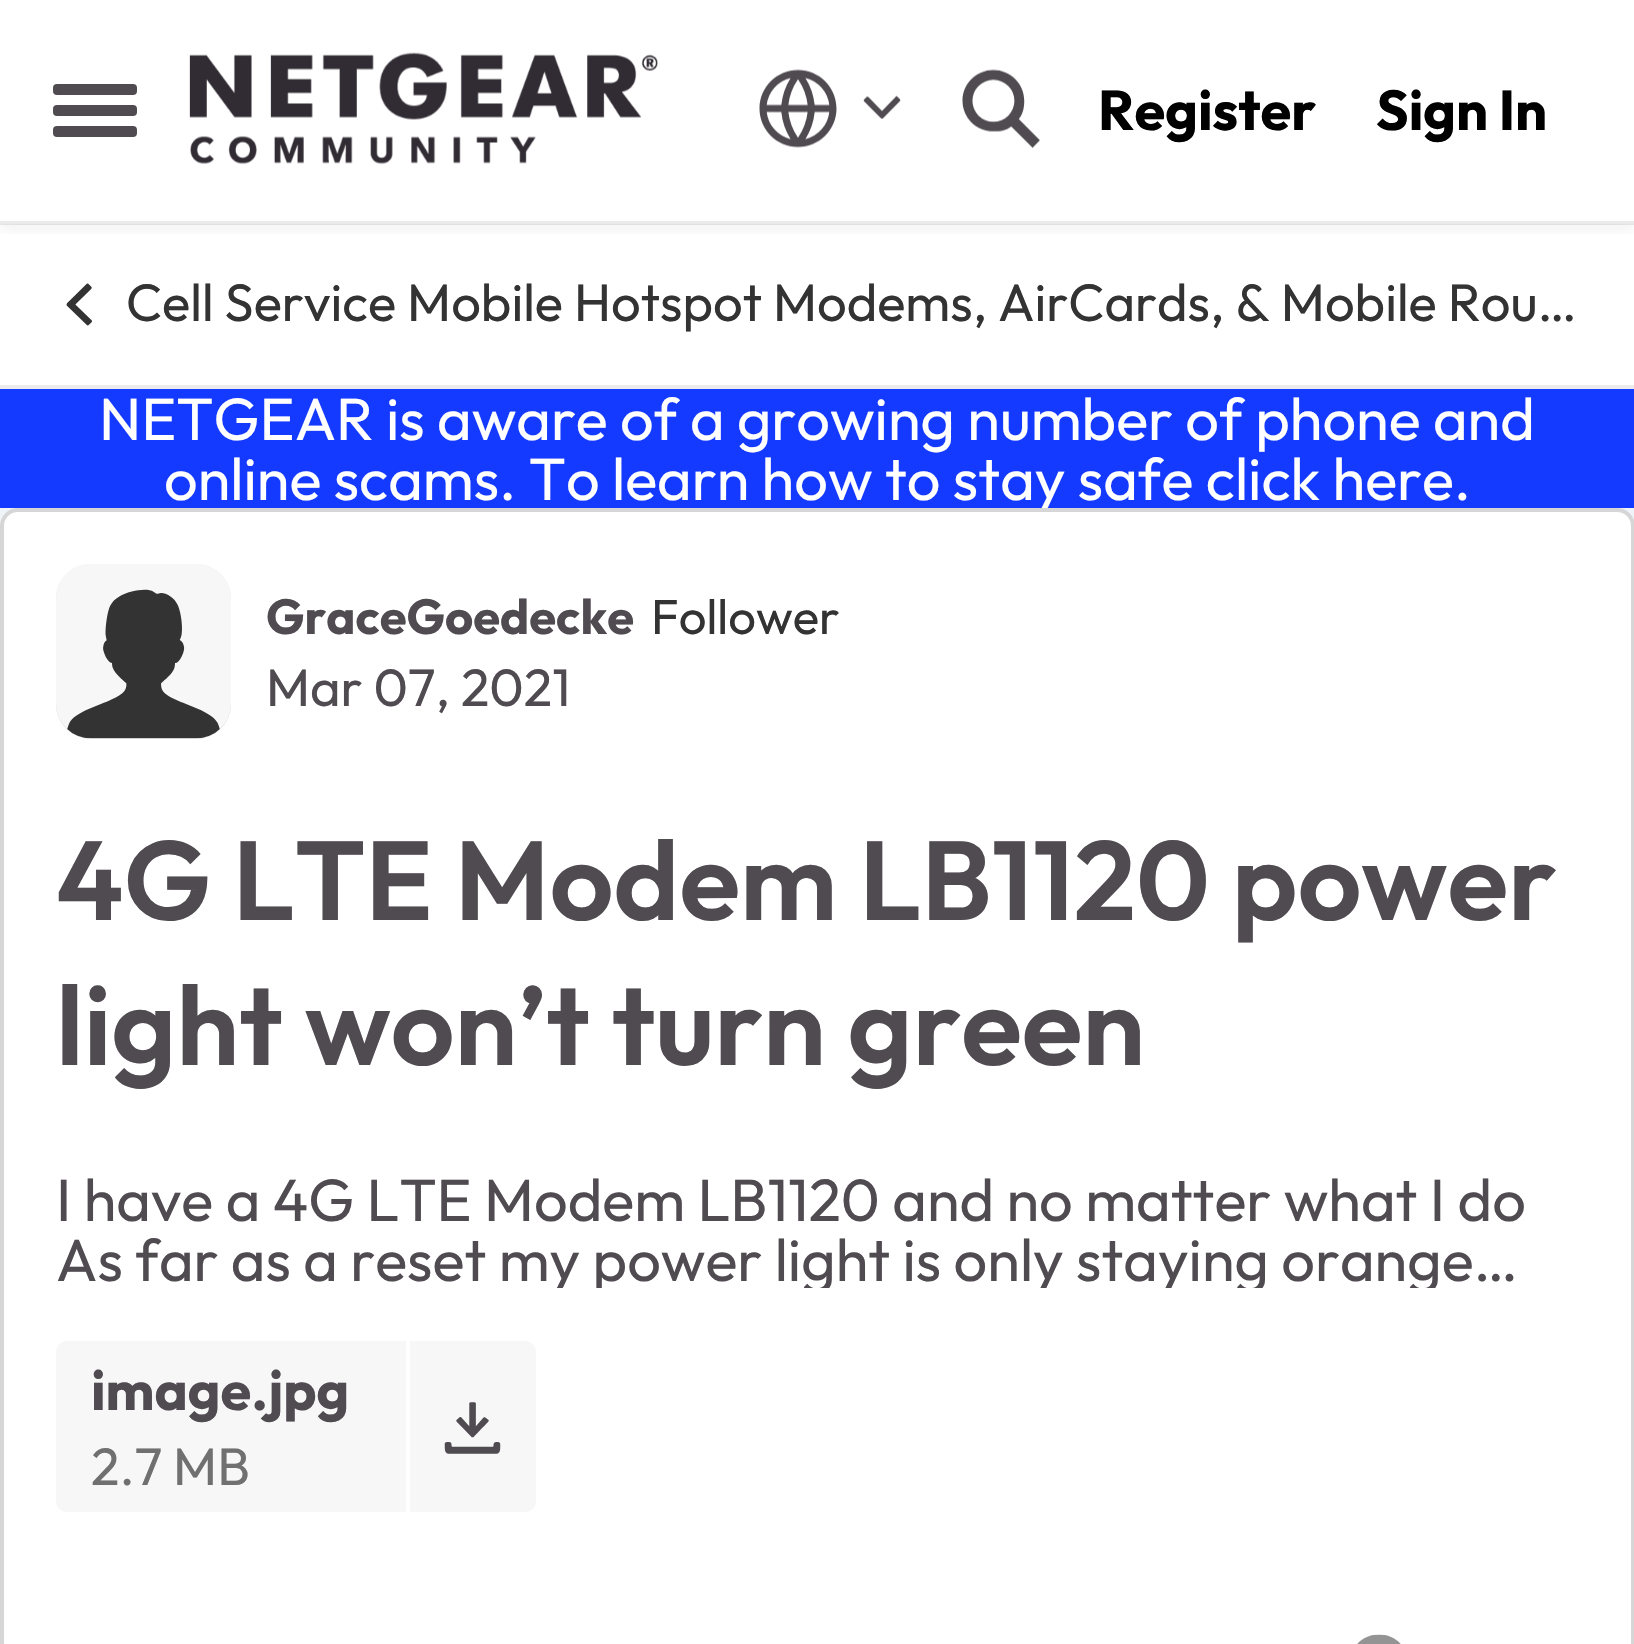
void draw(SkCanvas* canvas) {
    SkPaint paint;
    paint.setAntiAlias(true);
    auto face = [&](const char* family, int weight, float size, bool italic = false) {
        SkFontStyle style(weight, SkFontStyle::kNormal_Width,
            italic ? SkFontStyle::kItalic_Slant : SkFontStyle::kUpright_Slant);
        SkFont result(fontMgr->matchFamilyStyle(family, style), size);
        result.setSubpixel(true);
        return result;
    };
    auto write = [&](const char* s, float x, float y, const SkFont& font, SkColor color) {
        SkPaint ink(SkColor4f::FromColor(color));
        ink.setAntiAlias(true);
        canvas->drawString(s, x, y, font, ink);
    };
    auto block = [&](float x, float y, float w, float h, SkColor color) {
        SkPaint ink(SkColor4f::FromColor(color));
        ink.setAntiAlias(true);
        canvas->drawRect(SkRect::MakeXYWH(x, y, w, h), ink);
    };
    auto card = [&](float x, float y, float w, float h, float radius, SkColor color) {
        SkPaint ink(SkColor4f::FromColor(color));
        ink.setAntiAlias(true);
        canvas->drawRoundRect(SkRect::MakeXYWH(x, y, w, h), radius, radius, ink);
    };
    auto paste = [&](const char* path, float x, float y, float w, float h) {
        auto image = SkImages::DeferredFromEncodedData(SkData::MakeFromFileName(path));
        canvas->drawImageRect(image, SkRect::MakeXYWH(x, y, w, h), SkSamplingOptions());
    };
    canvas->clear(SkColorSetRGB(239, 244, 249));
    block(0, 0, 1634, 385, SK_ColorWHITE);
    canvas->save();
    canvas->clipRect(SkRect::MakeXYWH(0, 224, 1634, 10));
    paint.setColor(SkColorSetARGB(15, 51, 51, 51));
    paint.setMaskFilter(SkMaskFilter::MakeBlur(kNormal_SkBlurStyle, 7));
    canvas->drawRect(SkRect::MakeXYWH(0, 7, 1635, 224), paint);
    paint.setMaskFilter(nullptr);
    canvas->restore();
    block(0, 221, 1634, 4, SkColorSetARGB(20, 0, 0, 0));
    card(53, 84, 84, 11, 4, SkColorSetRGB(80, 75, 81));
    card(53, 105, 84, 11, 4, SkColorSetRGB(80, 75, 81));
    card(53, 126, 84, 11, 4, SkColorSetRGB(80, 75, 81));
    paste("pic1.png", 189, 52, 469, 113);
    paste("pic2.png", 759, 69, 78, 79);
    paste("pic3.png", 863, 95, 38, 25);
    paste("pic4.png", 962, 69, 78, 80);
    auto kFont1 = face("Outfit", 700, 56);
    write("Register", 1098, 130, kFont1, SK_ColorBLACK);
    write("Sign In", 1376, 130, kFont1, SK_ColorBLACK);
    block(0, 385, 1634, 4, SkColorSetRGB(235, 235, 235));
    paste("pic5.png", 66, 283, 26, 43);
    auto kFont2 = face("Outfit", 400, 52.5f);
    write("Cell Service Mobile Hotspot Modems, AirCards, & Mobile Rou…", 126, 321, kFont2, SkColorSetRGB(51, 51, 51));
    block(0, 389, 1634, 119, SkColorSetRGB(20, 57, 255));
    auto kFont3 = face("Outfit", 400, 59.5f);
    write("NETGEAR is aware of a growing number of phone and", 99, 440, kFont3, SK_ColorWHITE);
    write("online scams. To learn how to stay safe click here.", 164, 500, kFont3, SK_ColorWHITE);
    card(0, 508, 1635, 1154, 18, SK_ColorWHITE);
    paint.setStyle(SkPaint::kStroke_Style);
    paint.setStrokeWidth(4);
    paint.setColor(SkColorSetARGB(41, 0, 0, 0));
    canvas->drawRoundRect(SkRect::MakeXYWH(2, 510, 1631, 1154), 16, 16, paint);
    card(56, 564, 175, 175, 35, SkColorSetRGB(217, 217, 217));
    paste("pic6.png", 56, 564, 175, 175);
    auto kFont4 = face("Outfit", 700, 49);
    write("GraceGoedecke", 266, 634, kFont4, SkColorSetRGB(80, 75, 81));
    auto kFont5 = face("Outfit", 400, 49);
    write("Follower", 651, 634, kFont5, SkColorSetRGB(51, 51, 51));
    write("Mar 07, 2021", 266, 706, kFont2, SkColorSetRGB(80, 75, 81));
    auto kFont6 = face("Outfit", 600, 112);
    write("4G LTE Modem LB1120 power", 56, 920, kFont6, SkColorSetRGB(80, 75, 81));
    write("light won’t turn green", 56, 1065, kFont6, SkColorSetRGB(80, 75, 81));
    write("I have a 4G LTE Modem LB1120 and no matter what I do", 56, 1221, kFont3, SkColorSetRGB(80, 75, 81));
    canvas->save();
    canvas->clipRect(SkRect::MakeXYWH(56, 1169, 1523, 119));
    write("As far as a reset my power light is only staying orange…", 56, 1281, kFont3, SkColorSetRGB(80, 75, 81));
    canvas->restore();
    paint.setStyle(SkPaint::kFill_Style);
    paint.setColor(SkColorSetRGB(247, 247, 247));
    canvas->drawPath(SkPathBuilder().moveTo(67, 1341).lineTo(406, 1341).lineTo(406, 1512).lineTo(67, 1512).cubicTo(61, 1512, 56, 1507, 56, 1501).lineTo(56, 1352).cubicTo(56, 1346, 61, 1341, 67, 1341).close().detach(), paint);
    write("image.jpg", 91, 1410, kFont1, SkColorSetRGB(80, 75, 81));
    write("2.7 MB", 91, 1485, kFont2, SkColorSetRGB(112, 112, 112));
    canvas->drawPath(SkPathBuilder().moveTo(406, 1341).lineTo(525, 1341).cubicTo(531, 1341, 536, 1346, 536, 1352).lineTo(536, 1501).cubicTo(536, 1507, 531, 1512, 525, 1512).lineTo(406, 1512).close().detach(), paint);
    block(406, 1341, 4, 171, SK_ColorWHITE);
    paste("pic7.png", 444, 1402, 57, 52);
    paste("pic8.png", 1357, 1634, 44, 10);
}
